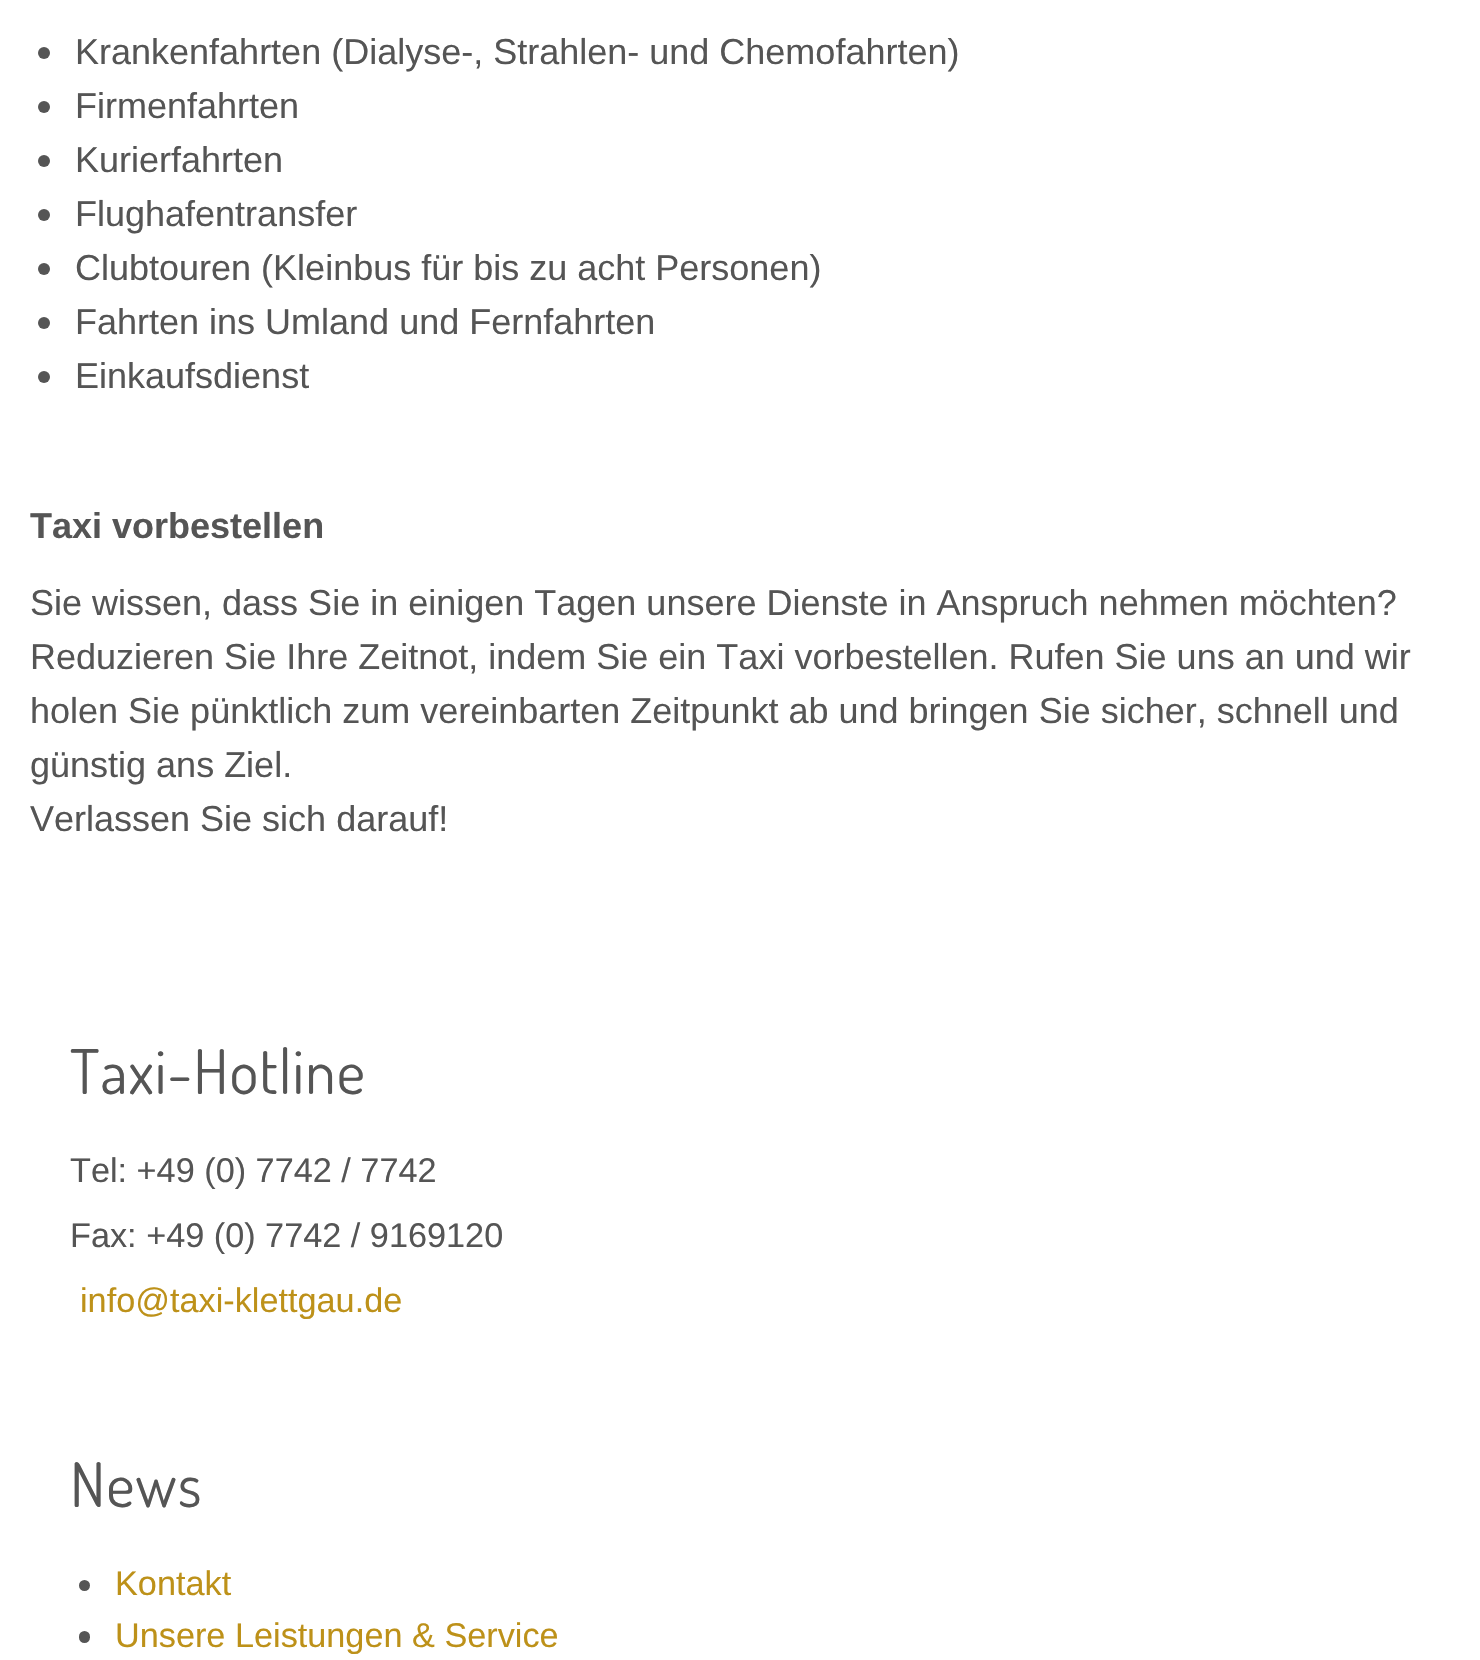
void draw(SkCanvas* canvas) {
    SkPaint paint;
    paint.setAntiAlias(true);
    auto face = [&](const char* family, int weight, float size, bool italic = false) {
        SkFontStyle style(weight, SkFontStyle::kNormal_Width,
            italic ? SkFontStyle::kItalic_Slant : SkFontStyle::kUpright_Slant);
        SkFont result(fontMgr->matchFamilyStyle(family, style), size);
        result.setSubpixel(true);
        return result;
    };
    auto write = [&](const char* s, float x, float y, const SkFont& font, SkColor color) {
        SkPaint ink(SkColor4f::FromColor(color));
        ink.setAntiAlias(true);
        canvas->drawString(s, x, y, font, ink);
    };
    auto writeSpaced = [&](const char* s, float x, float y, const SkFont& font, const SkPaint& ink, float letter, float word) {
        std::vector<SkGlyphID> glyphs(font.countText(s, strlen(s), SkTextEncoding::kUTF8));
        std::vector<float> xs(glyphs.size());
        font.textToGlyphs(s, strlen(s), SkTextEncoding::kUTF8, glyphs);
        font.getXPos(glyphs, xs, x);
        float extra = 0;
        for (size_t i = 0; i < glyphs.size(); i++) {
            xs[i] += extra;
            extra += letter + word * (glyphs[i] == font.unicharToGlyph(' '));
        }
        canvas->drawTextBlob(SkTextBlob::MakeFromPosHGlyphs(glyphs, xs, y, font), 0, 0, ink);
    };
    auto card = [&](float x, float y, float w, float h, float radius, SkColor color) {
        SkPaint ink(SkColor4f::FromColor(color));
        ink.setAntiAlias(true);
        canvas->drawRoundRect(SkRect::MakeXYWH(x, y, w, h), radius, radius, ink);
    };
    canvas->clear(SK_ColorWHITE);
    paint.setColor(SkColorSetRGB(85, 85, 85));
    canvas->drawCircle(44, 53, 6, paint);
    auto kFont1 = face("Liberation Sans", 400, 36);
    write("Krankenfahrten (Dialyse-, Strahlen- und Chemofahrten)", 75, 64, kFont1, SkColorSetRGB(85, 85, 85));
    canvas->drawCircle(44, 107, 6, paint);
    write("Firmenfahrten", 75, 118, kFont1, SkColorSetRGB(85, 85, 85));
    canvas->drawCircle(44, 161, 6, paint);
    write("Kurierfahrten", 75, 172, kFont1, SkColorSetRGB(85, 85, 85));
    canvas->drawCircle(44, 215, 6, paint);
    write("Flughafentransfer", 75, 226, kFont1, SkColorSetRGB(85, 85, 85));
    canvas->drawCircle(44, 269, 6, paint);
    write("Clubtouren (Kleinbus für bis zu acht Personen)", 75, 280, kFont1, SkColorSetRGB(85, 85, 85));
    canvas->drawCircle(44, 323, 6, paint);
    write("Fahrten ins Umland und Fernfahrten", 75, 334, kFont1, SkColorSetRGB(85, 85, 85));
    canvas->drawCircle(44, 377, 6, paint);
    write("Einkaufsdienst", 75, 388, kFont1, SkColorSetRGB(85, 85, 85));
    auto kFont2 = face("Liberation Sans", 700, 36);
    write("Taxi vorbestellen", 30, 538, kFont2, SkColorSetRGB(85, 85, 85));
    write("Sie wissen, dass Sie in einigen Tagen unsere Dienste in Anspruch nehmen möchten?", 30, 615, kFont1, SkColorSetRGB(85, 85, 85));
    write("Reduzieren Sie Ihre Zeitnot, indem Sie ein Taxi vorbestellen. Rufen Sie uns an und wir", 30, 669, kFont1, SkColorSetRGB(85, 85, 85));
    write("holen Sie pünktlich zum vereinbarten Zeitpunkt ab und bringen Sie sicher, schnell und", 30, 723, kFont1, SkColorSetRGB(85, 85, 85));
    write("günstig ans Ziel.", 30, 777, kFont1, SkColorSetRGB(85, 85, 85));
    write("Verlassen Sie sich darauf!", 30, 831, kFont1, SkColorSetRGB(85, 85, 85));
    auto kFont3 = face("Dosis", 400, 61.5f);
    writeSpaced("Taxi-Hotline", 70, 1094, kFont3, paint, 1.1f, 0);
    auto kFont4 = face("Liberation Sans", 400, 34.25f);
    write("Tel: +49 (0) 7742 / 7742", 70, 1182, kFont4, SkColorSetRGB(85, 85, 85));
    write("Fax: +49 (0) 7742 / 9169120", 70, 1247, kFont4, SkColorSetRGB(85, 85, 85));
    write("info@taxi-klettgau.de", 80, 1312, kFont4, SkColorSetRGB(189, 145, 25));
    writeSpaced("News", 70, 1507, kFont3, paint, 1.1f, 0);
    canvas->drawCircle(84.5f, 1585.5f, 5.5f, paint);
    write("Kontakt", 115, 1595, kFont4, SkColorSetRGB(189, 145, 25));
    card(79, 1631, 11, 12, 5.5f, SkColorSetRGB(85, 85, 85));
    write("Unsere Leistungen & Service", 115, 1647, kFont4, SkColorSetRGB(189, 145, 25));
}
